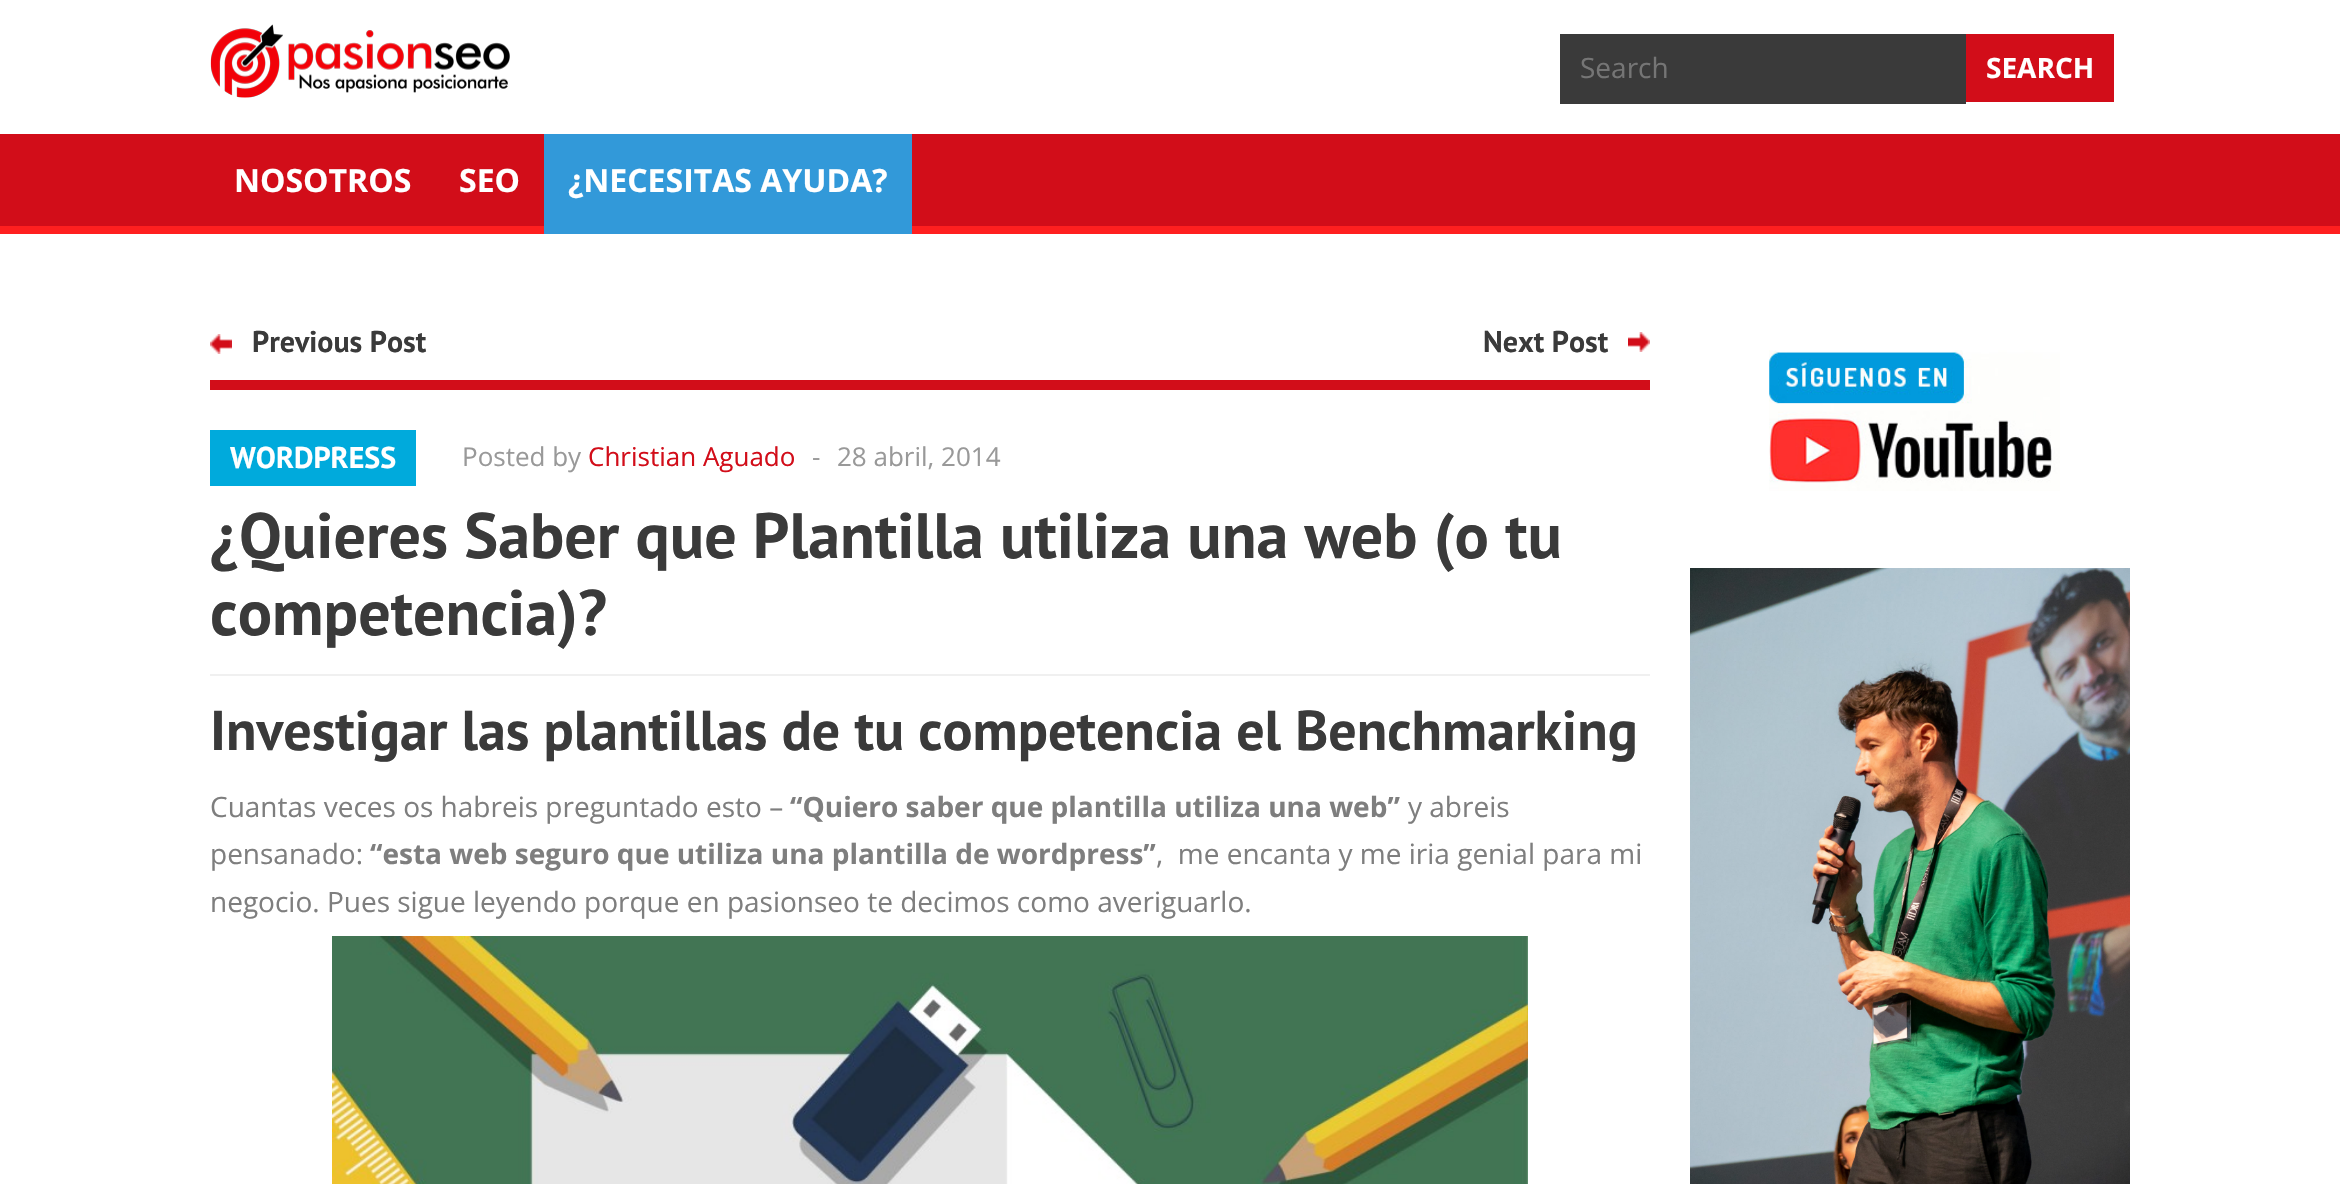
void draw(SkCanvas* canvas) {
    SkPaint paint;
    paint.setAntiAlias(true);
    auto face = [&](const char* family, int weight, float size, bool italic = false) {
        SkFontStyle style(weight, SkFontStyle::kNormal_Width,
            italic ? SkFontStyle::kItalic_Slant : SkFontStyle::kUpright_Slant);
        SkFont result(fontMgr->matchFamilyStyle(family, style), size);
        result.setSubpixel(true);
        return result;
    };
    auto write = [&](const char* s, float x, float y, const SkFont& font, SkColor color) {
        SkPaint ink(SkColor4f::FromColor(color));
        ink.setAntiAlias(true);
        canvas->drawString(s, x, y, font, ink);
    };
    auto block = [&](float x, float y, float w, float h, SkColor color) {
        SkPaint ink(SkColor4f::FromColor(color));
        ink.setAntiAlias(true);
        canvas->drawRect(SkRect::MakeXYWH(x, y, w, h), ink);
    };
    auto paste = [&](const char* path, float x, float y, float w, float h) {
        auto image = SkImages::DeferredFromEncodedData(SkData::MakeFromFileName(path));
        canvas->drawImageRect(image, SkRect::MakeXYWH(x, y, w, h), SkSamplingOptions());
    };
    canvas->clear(SK_ColorWHITE);
    paste("pic1.png", 210, 24, 300, 74);
    block(1560, 34, 406, 70, SkColorSetRGB(58, 58, 58));
    auto kFont1 = face("Open Sans", 400, 28);
    write("Search", 1580, 78, kFont1, SkColorSetRGB(117, 117, 117));
    block(1966, 34, 148, 68, SkColorSetRGB(210, 13, 25));
    auto kFont2 = face("Open Sans", 700, 28);
    write("SEARCH", 1986, 78, kFont2, SK_ColorWHITE);
    block(0, 134, 2340, 92, SkColorSetRGB(210, 13, 25));
    block(0, 226, 2340, 8, SkColorSetRGB(255, 31, 31));
    auto kFont3 = face("Open Sans", 700, 32);
    write("NOSOTROS", 234, 192, kFont3, SK_ColorWHITE);
    write("SEO", 459, 192, kFont3, SK_ColorWHITE);
    block(544, 134, 368, 100, SkColorSetRGB(50, 153, 217));
    write("¿NECESITAS AYUDA?", 568, 192, kFont3, SK_ColorWHITE);
    block(210, 674, 1440, 2, SkColorSetRGB(240, 240, 240));
    block(210, 380, 1440, 10, SkColorSetRGB(210, 13, 25));
    block(210, 334, 22, 20, SkColorSetRGB(210, 13, 25));
    paste("pic2.png", 210, 334, 22, 20);
    auto kFont4 = face("PT Sans", 700, 30);
    write("Previous Post", 252, 352, kFont4, SkColorSetRGB(58, 58, 58));
    write("Next Post", 1483, 352, kFont4, SkColorSetRGB(58, 58, 58));
    block(1628, 332, 22, 20, SkColorSetRGB(210, 13, 25));
    paste("pic3.png", 1628, 332, 22, 20);
    block(210, 430, 206, 56, SkColorSetRGB(0, 170, 220));
    write("WORDPRESS", 230, 468, kFont4, SK_ColorWHITE);
    auto kFont5 = face("Open Sans", 400, 26);
    write("Posted by", 462, 466, kFont5, SkColorSetRGB(153, 153, 153));
    write("Christian Aguado", 588, 466, kFont5, SkColorSetRGB(210, 13, 25));
    write("-", 812, 466, kFont5, SkColorSetRGB(153, 153, 153));
    write("28 abril, 2014", 837, 466, kFont5, SkColorSetRGB(153, 153, 153));
    auto kFont6 = face("PT Sans", 700, 64);
    write("¿Quieres Saber que Plantilla utiliza una web (o tu", 210, 558, kFont6, SkColorSetRGB(58, 58, 58));
    write("competencia)?", 210, 635, kFont6, SkColorSetRGB(58, 58, 58));
    auto kFont7 = face("PT Sans", 700, 56);
    write("Investigar las plantillas de tu competencia el Benchmarking", 210, 750, kFont7, SkColorSetRGB(58, 58, 58));
    write("Cuantas veces os habreis preguntado esto –", 210, 817, kFont1, SkColorSetRGB(126, 126, 126));
    write("“Quiero saber que plantilla utiliza una web”", 790, 817, kFont2, SkColorSetRGB(126, 126, 126));
    write("y abreis", 1408, 817, kFont1, SkColorSetRGB(126, 126, 126));
    write("pensanado:", 210, 864, kFont1, SkColorSetRGB(126, 126, 126));
    write("“esta web seguro que utiliza una plantilla de wordpress”", 370, 864, kFont2, SkColorSetRGB(126, 126, 126));
    write(",  me encanta y me iria genial para mi", 1156, 864, kFont1, SkColorSetRGB(126, 126, 126));
    write("negocio. Pues sigue leyendo porque en pasionseo te decimos como averiguarlo.", 210, 912, kFont1, SkColorSetRGB(126, 126, 126));
    paste("pic4.png", 332, 936, 1196, 248);
    paste("pic5.png", 1769, 350, 291, 141);
    paste("pic6.png", 1690, 568, 440, 616);
}
